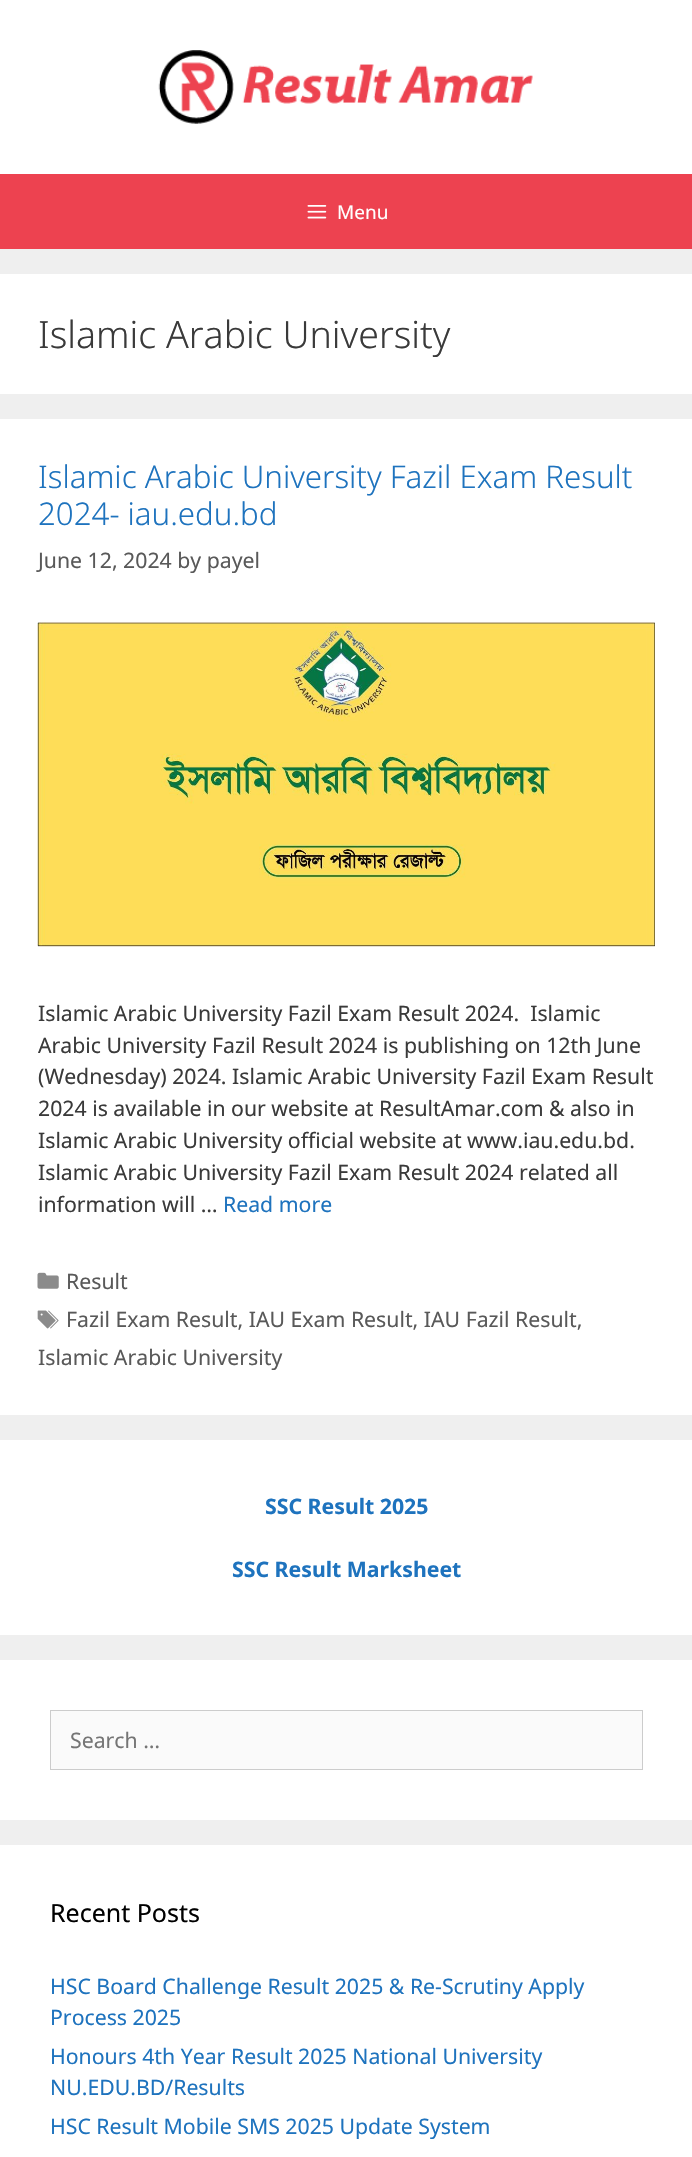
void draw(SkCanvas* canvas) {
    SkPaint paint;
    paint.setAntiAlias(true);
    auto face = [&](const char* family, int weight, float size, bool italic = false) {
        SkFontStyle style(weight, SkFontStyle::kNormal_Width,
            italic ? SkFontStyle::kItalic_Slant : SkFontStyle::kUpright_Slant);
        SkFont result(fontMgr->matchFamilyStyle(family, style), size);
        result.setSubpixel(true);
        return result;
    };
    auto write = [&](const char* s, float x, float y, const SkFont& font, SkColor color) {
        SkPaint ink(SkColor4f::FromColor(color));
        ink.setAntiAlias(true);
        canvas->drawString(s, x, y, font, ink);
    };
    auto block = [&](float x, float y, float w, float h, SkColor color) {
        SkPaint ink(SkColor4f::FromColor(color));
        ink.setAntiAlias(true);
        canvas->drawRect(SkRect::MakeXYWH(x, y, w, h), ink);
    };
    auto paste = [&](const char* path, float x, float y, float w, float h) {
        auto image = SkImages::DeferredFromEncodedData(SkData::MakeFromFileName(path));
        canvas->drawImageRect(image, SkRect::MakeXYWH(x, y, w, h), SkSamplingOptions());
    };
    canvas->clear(SkColorSetRGB(239, 239, 239));
    block(0, 0, 692, 174, SK_ColorWHITE);
    paste("pic1.png", 158, 50, 375, 74);
    block(0, 174, 692, 75, SkColorSetRGB(237, 66, 80));
    paste("pic2.png", 307, 205, 20, 14);
    auto kFont1 = face("Noto Sans", 400, 19);
    write("Menu", 337, 219, kFont1, SK_ColorWHITE);
    block(0, 274, 692, 120, SK_ColorWHITE);
    auto kFont2 = face("Noto Sans", 300, 37.5f);
    write("Islamic Arabic University", 38, 348, kFont2, SkColorSetRGB(58, 58, 58));
    block(0, 419, 692, 996, SK_ColorWHITE);
    auto kFont3 = face("Noto Sans", 300, 31.25f);
    write("Islamic Arabic University Fazil Exam Result", 38, 488, kFont3, SkColorSetRGB(30, 115, 190));
    write("2024- iau.edu.bd", 38, 525, kFont3, SkColorSetRGB(30, 115, 190));
    auto kFont4 = face("Noto Sans", 400, 21.25f);
    write("June 12, 2024 by payel", 38, 568, kFont4, SkColorSetRGB(89, 89, 89));
    paste("pic3.png", 37, 622, 618, 325);
    write("Islamic Arabic University Fazil Exam Result 2024.  Islamic", 38, 1021, kFont4, SkColorSetRGB(58, 58, 58));
    write("Arabic University Fazil Result 2024 is publishing on 12th June", 38, 1053, kFont4, SkColorSetRGB(58, 58, 58));
    write("(Wednesday) 2024. Islamic Arabic University Fazil Exam Result", 38, 1084, kFont4, SkColorSetRGB(58, 58, 58));
    write("2024 is available in our website at ResultAmar.com & also in", 38, 1116, kFont4, SkColorSetRGB(58, 58, 58));
    write("Islamic Arabic University official website at www.iau.edu.bd.", 38, 1148, kFont4, SkColorSetRGB(58, 58, 58));
    write("Islamic Arabic University Fazil Exam Result 2024 related all", 38, 1180, kFont4, SkColorSetRGB(58, 58, 58));
    write("information will …", 38, 1212, kFont4, SkColorSetRGB(58, 58, 58));
    write("Read more", 223, 1212, kFont4, SkColorSetRGB(30, 115, 190));
    paste("pic4.png", 37, 1272, 22, 17);
    write("Result", 66, 1289, kFont4, SkColorSetRGB(89, 89, 89));
    paste("pic5.png", 37, 1310, 22, 19);
    write("Fazil Exam Result, IAU Exam Result, IAU Fazil Result,", 66, 1327, kFont4, SkColorSetRGB(89, 89, 89));
    write("Islamic Arabic University", 38, 1365, kFont4, SkColorSetRGB(89, 89, 89));
    block(0, 1440, 692, 195, SK_ColorWHITE);
    auto kFont5 = face("Noto Sans", 700, 21.25f);
    write("SSC Result 2025", 265, 1514, kFont5, SkColorSetRGB(30, 115, 190));
    write("SSC Result Marksheet", 232, 1577, kFont5, SkColorSetRGB(30, 115, 190));
    block(0, 1660, 692, 160, SK_ColorWHITE);
    paint.setColor(SkColorSetRGB(250, 250, 250));
    canvas->drawRect(SkRect::MakeXYWH(50.5f, 1710.5f, 592, 59), paint);
    paint.setStyle(SkPaint::kStroke_Style);
    paint.setStrokeWidth(1);
    paint.setColor(SkColorSetRGB(204, 204, 204));
    canvas->drawRect(SkRect::MakeXYWH(50.5f, 1710.5f, 592, 59), paint);
    write("Search …", 70, 1748, kFont4, SkColorSetRGB(117, 117, 117));
    block(0, 1845, 692, 312, SK_ColorWHITE);
    auto kFont6 = face("Noto Sans", 400, 25);
    write("Recent Posts", 50, 1922, kFont6, SK_ColorBLACK);
    write("HSC Board Challenge Result 2025 & Re-Scrutiny Apply", 50, 1994, kFont4, SkColorSetRGB(30, 115, 190));
    write("Process 2025", 50, 2025, kFont4, SkColorSetRGB(30, 115, 190));
    write("Honours 4th Year Result 2025 National University", 50, 2064, kFont4, SkColorSetRGB(30, 115, 190));
    write("NU.EDU.BD/Results", 50, 2095, kFont4, SkColorSetRGB(30, 115, 190));
    write("HSC Result Mobile SMS 2025 Update System", 50, 2134, kFont4, SkColorSetRGB(30, 115, 190));
}
